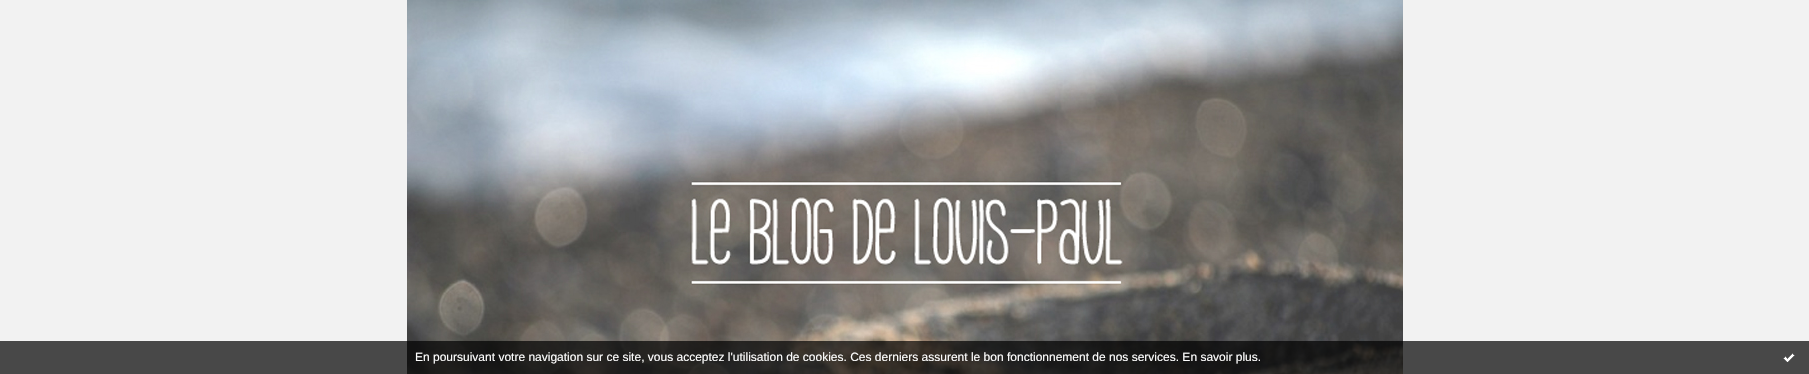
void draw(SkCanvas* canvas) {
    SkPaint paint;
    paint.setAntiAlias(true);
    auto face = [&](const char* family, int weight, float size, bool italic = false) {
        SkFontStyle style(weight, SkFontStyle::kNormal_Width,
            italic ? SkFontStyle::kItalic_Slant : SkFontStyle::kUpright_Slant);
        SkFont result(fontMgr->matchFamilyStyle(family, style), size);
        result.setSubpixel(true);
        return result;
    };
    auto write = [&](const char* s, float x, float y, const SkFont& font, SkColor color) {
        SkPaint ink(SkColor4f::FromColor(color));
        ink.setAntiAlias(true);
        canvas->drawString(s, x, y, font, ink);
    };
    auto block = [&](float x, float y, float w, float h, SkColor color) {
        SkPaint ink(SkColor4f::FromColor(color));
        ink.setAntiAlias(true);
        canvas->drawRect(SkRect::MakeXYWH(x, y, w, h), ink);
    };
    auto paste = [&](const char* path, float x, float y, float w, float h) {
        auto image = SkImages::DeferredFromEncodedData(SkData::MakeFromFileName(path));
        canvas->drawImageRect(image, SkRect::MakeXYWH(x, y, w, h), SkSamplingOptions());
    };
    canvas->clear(SkColorSetRGB(242, 242, 242));
    paste("pic1.png", 407, 0, 996, 374);
    block(0, 341, 1809, 33, SkColorSetARGB(179, 0, 0, 0));
    auto kFont1 = face("Liberation Sans", 400, 12);
    write("En poursuivant votre navigation sur ce site, vous acceptez l'utilisation de cookies. Ces derniers assurent le bon fonctionnement de nos services. En savoir plus.", 415, 361, kFont1, SK_ColorWHITE);
    paste("pic2.png", 1783, 353, 12, 9);
}
